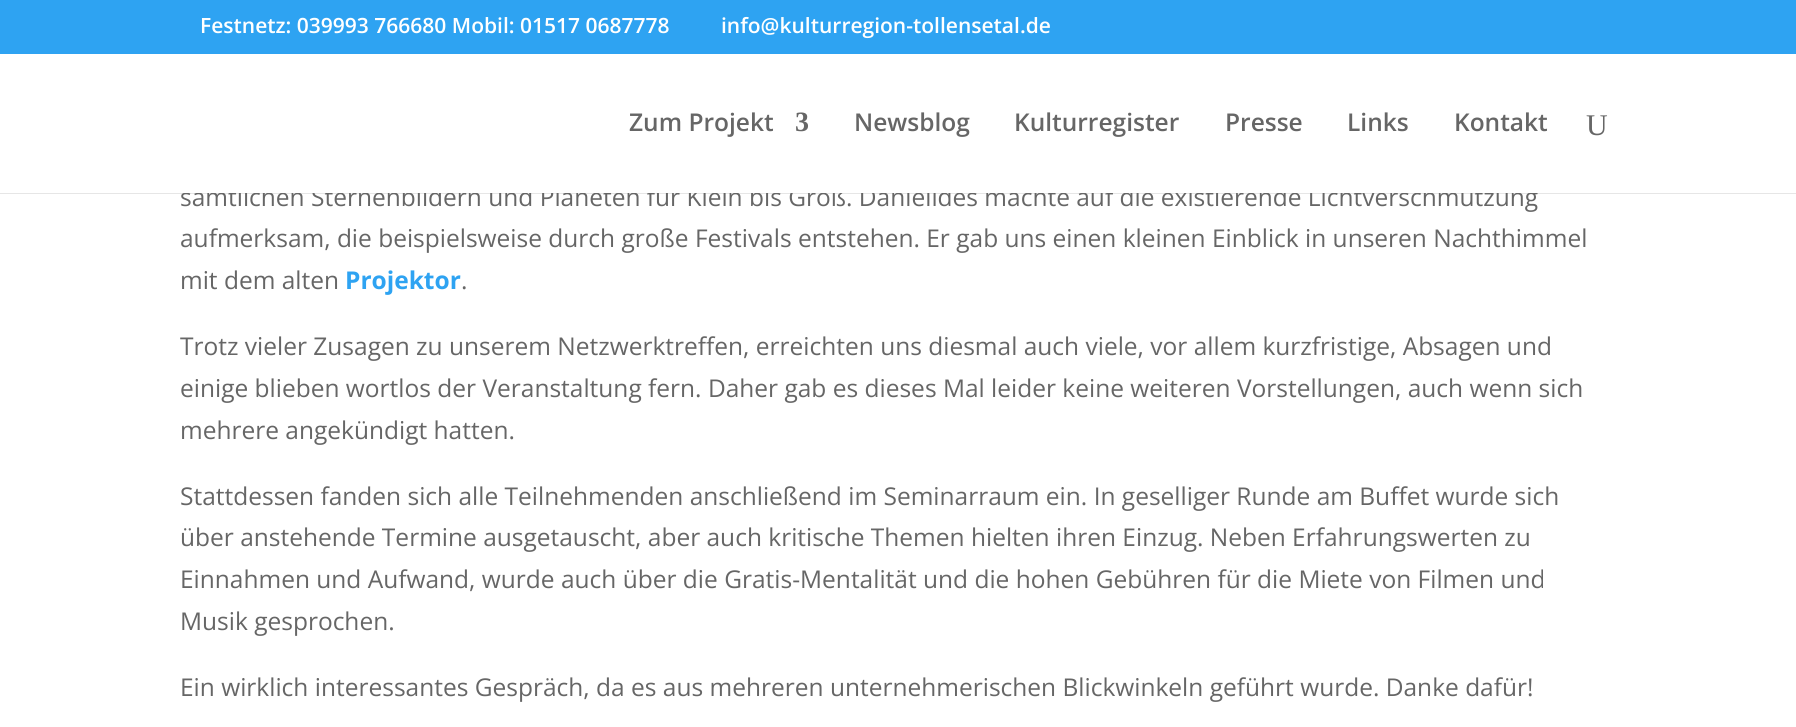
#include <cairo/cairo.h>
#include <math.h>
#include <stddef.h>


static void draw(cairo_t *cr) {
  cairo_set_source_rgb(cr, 1, 1, 1);
  cairo_paint(cr);
  cairo_set_source_rgb(cr, 46 / 255.0, 163 / 255.0, 242 / 255.0);
  cairo_rectangle(cr, 0, 0, 1796, 54);
  cairo_fill(cr);
  cairo_set_source_rgba(cr, 0, 0, 0, 0.1);
  cairo_rectangle(cr, 0, 193, 1796, 1);
  cairo_fill(cr);
  cairo_select_font_face(cr, "Open Sans SemiBold", CAIRO_FONT_SLANT_NORMAL, CAIRO_FONT_WEIGHT_NORMAL);
  cairo_set_font_size(cr, 21);
  cairo_set_source_rgb(cr, 1, 1, 1);
  cairo_move_to(cr, 200, 33);
  cairo_show_text(cr, "Festnetz: 039993 766680 Mobil: 01517 0687778");
  cairo_move_to(cr, 721, 33);
  cairo_show_text(cr, "info@kulturregion-tollensetal.de");
  cairo_set_font_size(cr, 24.5);
  cairo_set_source_rgb(cr, 102 / 255.0, 102 / 255.0, 102 / 255.0);
  cairo_move_to(cr, 629, 131);
  cairo_show_text(cr, "Zum Projekt");
  cairo_select_font_face(cr, "Liberation Serif", CAIRO_FONT_SLANT_NORMAL, CAIRO_FONT_WEIGHT_BOLD);
  cairo_set_font_size(cr, 28);
  cairo_move_to(cr, 795, 131);
  cairo_show_text(cr, "3");
  cairo_select_font_face(cr, "Open Sans SemiBold", CAIRO_FONT_SLANT_NORMAL, CAIRO_FONT_WEIGHT_NORMAL);
  cairo_set_font_size(cr, 24.5);
  cairo_move_to(cr, 854, 131);
  cairo_show_text(cr, "Newsblog");
  cairo_move_to(cr, 1014, 131);
  cairo_show_text(cr, "Kulturregister");
  cairo_move_to(cr, 1225, 131);
  cairo_show_text(cr, "Presse");
  cairo_move_to(cr, 1347, 131);
  cairo_show_text(cr, "Links");
  cairo_move_to(cr, 1454, 131);
  cairo_show_text(cr, "Kontakt");
  cairo_select_font_face(cr, "Liberation Serif", CAIRO_FONT_SLANT_NORMAL, CAIRO_FONT_WEIGHT_NORMAL);
  cairo_set_font_size(cr, 30);
  cairo_move_to(cr, 1586, 135);
  cairo_show_text(cr, "U");
  cairo_select_font_face(cr, "Open Sans", CAIRO_FONT_SLANT_NORMAL, CAIRO_FONT_WEIGHT_NORMAL);
  cairo_set_font_size(cr, 24.5);
  cairo_move_to(cr, 180, 206);
  cairo_show_text(cr, "sämtlichen Sternenbildern und Planeten für Klein bis Groß. Danielides machte auf die existierende Lichtverschmutzung");
  cairo_set_source_rgb(cr, 1, 1, 1);
  cairo_rectangle(cr, 183, 187, 1355, 6);
  cairo_fill(cr);
  cairo_set_source_rgb(cr, 102 / 255.0, 102 / 255.0, 102 / 255.0);
  cairo_move_to(cr, 180, 247);
  cairo_show_text(cr, "aufmerksam, die beispielsweise durch große Festivals entstehen. Er gab uns einen kleinen Einblick in unseren Nachthimmel");
  cairo_move_to(cr, 180, 289);
  cairo_show_text(cr, "mit dem alten");
  cairo_select_font_face(cr, "Open Sans", CAIRO_FONT_SLANT_NORMAL, CAIRO_FONT_WEIGHT_BOLD);
  cairo_set_source_rgb(cr, 46 / 255.0, 163 / 255.0, 242 / 255.0);
  cairo_move_to(cr, 345, 289);
  cairo_show_text(cr, "Projektor");
  cairo_select_font_face(cr, "Open Sans", CAIRO_FONT_SLANT_NORMAL, CAIRO_FONT_WEIGHT_NORMAL);
  cairo_set_source_rgb(cr, 102 / 255.0, 102 / 255.0, 102 / 255.0);
  cairo_move_to(cr, 461, 289);
  cairo_show_text(cr, ".");
  cairo_move_to(cr, 180, 355);
  cairo_show_text(cr, "Trotz vieler Zusagen zu unserem Netzwerktreffen, erreichten uns diesmal auch viele, vor allem kurzfristige, Absagen und");
  cairo_move_to(cr, 180, 397);
  cairo_show_text(cr, "einige blieben wortlos der Veranstaltung fern. Daher gab es dieses Mal leider keine weiteren Vorstellungen, auch wenn sich");
  cairo_move_to(cr, 180, 439);
  cairo_show_text(cr, "mehrere angekündigt hatten.");
  cairo_move_to(cr, 180, 505);
  cairo_show_text(cr, "Stattdessen fanden sich alle Teilnehmenden anschließend im Seminarraum ein. In geselliger Runde am Buffet wurde sich");
  cairo_move_to(cr, 180, 546);
  cairo_show_text(cr, "über anstehende Termine ausgetauscht, aber auch kritische Themen hielten ihren Einzug. Neben Erfahrungswerten zu");
  cairo_move_to(cr, 180, 588);
  cairo_show_text(cr, "Einnahmen und Aufwand, wurde auch über die Gratis-Mentalität und die hohen Gebühren für die Miete von Filmen und");
  cairo_move_to(cr, 180, 630);
  cairo_show_text(cr, "Musik gesprochen.");
  cairo_move_to(cr, 180, 696);
  cairo_show_text(cr, "Ein wirklich interessantes Gespräch, da es aus mehreren unternehmerischen Blickwinkeln geführt wurde. Danke dafür!");
}

int main(void) {
  cairo_surface_t *surface = cairo_image_surface_create(CAIRO_FORMAT_RGB24, 1796, 727);
  cairo_t *cr = cairo_create(surface);
  cairo_font_options_t *options = cairo_font_options_create();
  cairo_font_options_set_hint_metrics(options, CAIRO_HINT_METRICS_OFF);
  cairo_font_options_set_hint_style(options, CAIRO_HINT_STYLE_NONE);
  cairo_set_font_options(cr, options);
  cairo_set_miter_limit(cr, 4);
  draw(cr);
  cairo_surface_write_to_png(surface, "out.png");
  cairo_font_options_destroy(options);
  cairo_destroy(cr);
  cairo_surface_destroy(surface);
  return 0;
}
